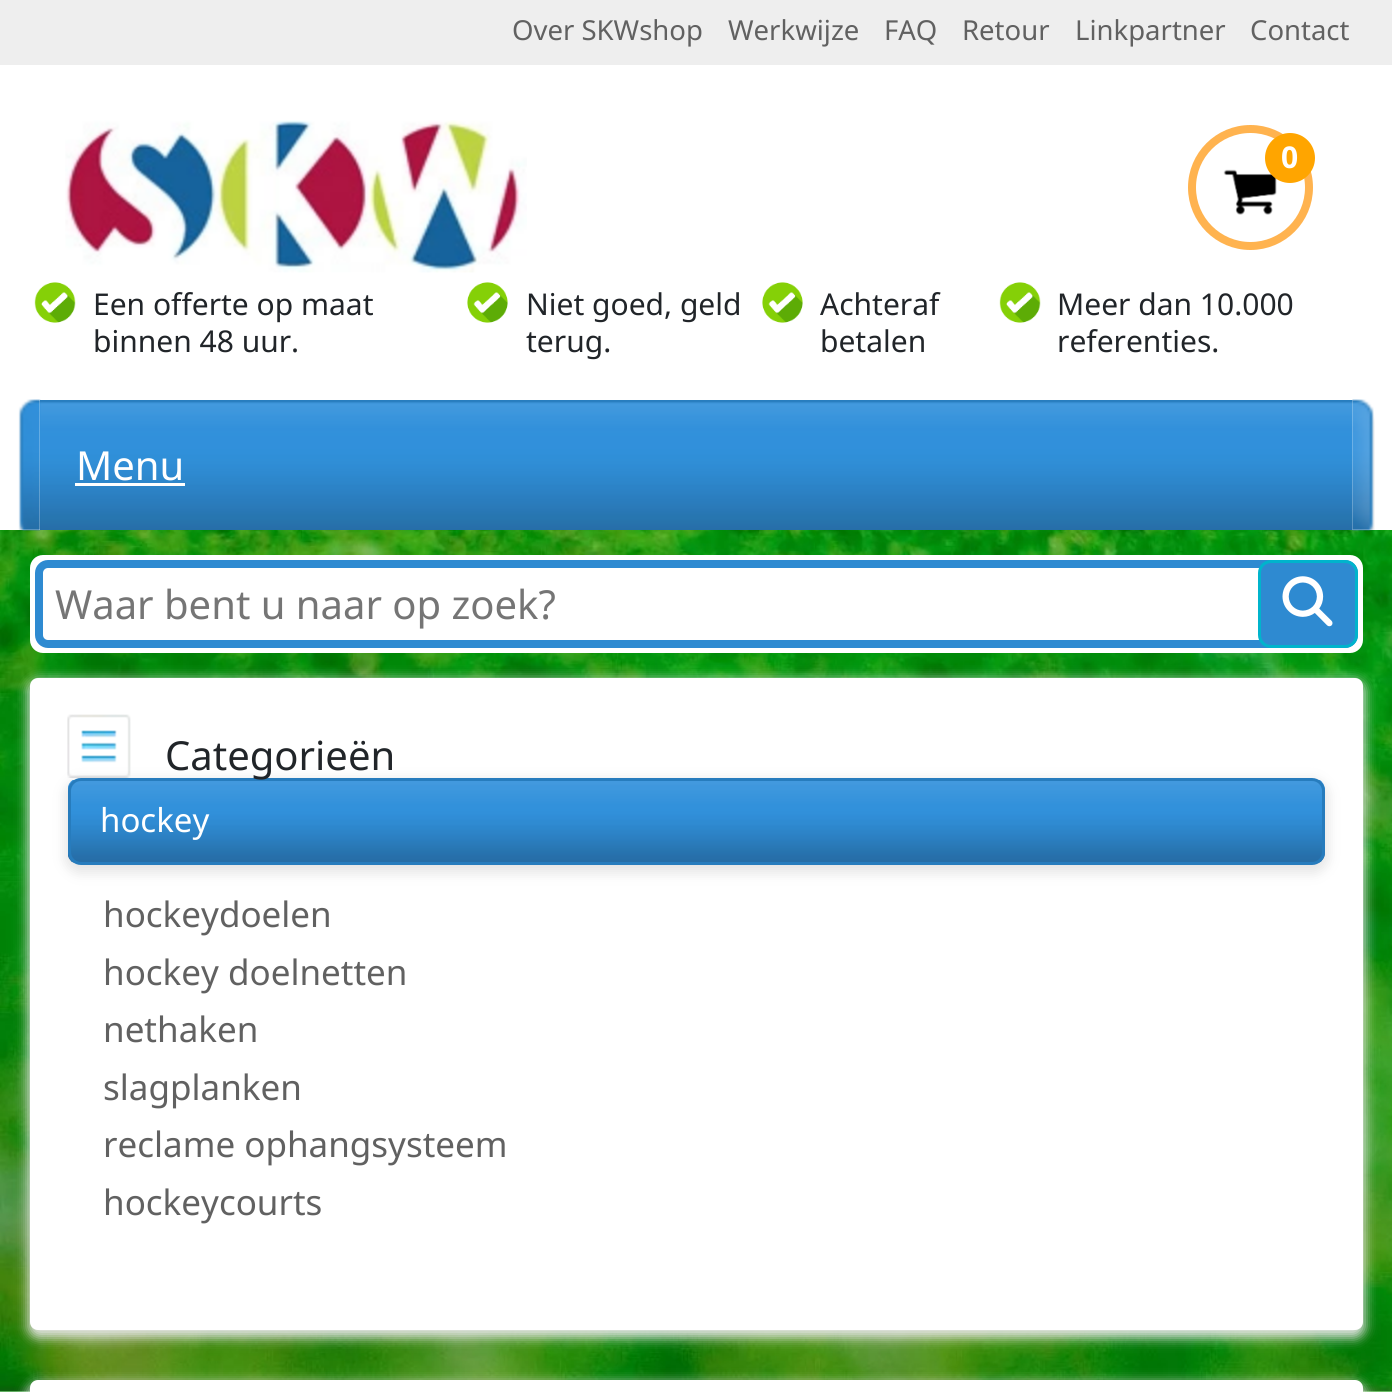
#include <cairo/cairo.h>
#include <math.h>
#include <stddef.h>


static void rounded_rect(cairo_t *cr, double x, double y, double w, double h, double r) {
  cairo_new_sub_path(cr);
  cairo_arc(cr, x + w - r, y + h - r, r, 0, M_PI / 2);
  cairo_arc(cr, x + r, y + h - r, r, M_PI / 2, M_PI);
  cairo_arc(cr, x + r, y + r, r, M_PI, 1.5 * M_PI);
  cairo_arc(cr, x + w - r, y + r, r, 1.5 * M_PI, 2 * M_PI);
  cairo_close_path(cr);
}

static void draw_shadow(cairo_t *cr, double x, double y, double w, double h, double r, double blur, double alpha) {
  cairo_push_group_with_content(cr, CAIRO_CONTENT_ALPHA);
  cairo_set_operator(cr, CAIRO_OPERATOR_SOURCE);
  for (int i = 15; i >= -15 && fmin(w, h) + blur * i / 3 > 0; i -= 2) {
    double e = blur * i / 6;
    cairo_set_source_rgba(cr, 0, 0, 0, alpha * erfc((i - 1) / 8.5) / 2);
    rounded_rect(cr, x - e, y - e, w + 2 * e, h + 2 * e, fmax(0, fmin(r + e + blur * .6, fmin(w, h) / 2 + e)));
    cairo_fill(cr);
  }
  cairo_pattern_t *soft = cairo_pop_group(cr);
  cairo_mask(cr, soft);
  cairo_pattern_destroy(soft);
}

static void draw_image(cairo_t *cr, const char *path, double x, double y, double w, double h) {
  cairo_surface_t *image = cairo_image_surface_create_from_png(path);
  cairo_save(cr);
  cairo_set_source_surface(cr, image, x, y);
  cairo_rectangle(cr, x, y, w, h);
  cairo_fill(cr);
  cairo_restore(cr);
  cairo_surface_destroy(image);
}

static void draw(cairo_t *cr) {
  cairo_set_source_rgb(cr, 1, 1, 1);
  cairo_paint(cr);
  draw_image(cr, "images/1.png", 0, 530, 1392, 862);
  cairo_set_source_rgb(cr, 238 / 255.0, 238 / 255.0, 238 / 255.0);
  cairo_rectangle(cr, 0, 0, 1392, 65);
  cairo_fill(cr);
  draw_image(cr, "images/2.png", 65, 120, 462, 153);
  cairo_arc(cr, 1250.5, 187.5, 58.5, 0, 2 * M_PI);
  cairo_set_source_rgb(cr, 1, 179 / 255.0, 79 / 255.0);
  cairo_set_line_width(cr, 8);
  cairo_stroke(cr);
  draw_image(cr, "images/3.png", 1223, 169, 54, 46);
  cairo_set_source_rgb(cr, 1, 165 / 255.0, 0);
  cairo_arc(cr, 1290, 158, 25, 0, 2 * M_PI);
  cairo_fill(cr);
  draw_image(cr, "images/4.png", 34, 282, 42, 41);
  draw_image(cr, "images/5.png", 467, 282, 41, 41);
  draw_image(cr, "images/6.png", 762, 282, 41, 41);
  draw_image(cr, "images/7.png", 999, 282, 42, 41);
  draw_image(cr, "images/9.png", 40, 400, 1313, 130);
  draw_image(cr, "images/8.png", 18, 399, 23, 132);
  cairo_set_source_rgb(cr, 1, 1, 1);
  cairo_rectangle(cr, 75, 483, 110, 3);
  cairo_fill(cr);
  draw_image(cr, "images/10.png", 1352, 399, 23, 132);
  rounded_rect(cr, 30, 555, 1333, 98, 13);
  cairo_fill(cr);
  rounded_rect(cr, 39, 564, 1315, 80, 9);
  cairo_set_source_rgb(cr, 46 / 255.0, 138 / 255.0, 209 / 255.0);
  cairo_stroke(cr);
  rounded_rect(cr, 1259.5, 561.5, 97, 85, 11.5);
  cairo_fill_preserve(cr);
  cairo_set_source_rgb(cr, 0, 180 / 255.0, 204 / 255.0);
  cairo_set_line_width(cr, 3);
  cairo_stroke(cr);
  draw_image(cr, "images/11.png", 1282, 576, 51, 51);
  cairo_set_source_rgb(cr, 229 / 255.0, 229 / 255.0, 229 / 255.0);
  draw_shadow(cr, 28, 680, 1337, 658, 10, 6, 1);
  cairo_set_source_rgb(cr, 1, 1, 1);
  rounded_rect(cr, 30, 678, 1333, 652, 8);
  cairo_fill(cr);
  cairo_set_source_rgb(cr, 229 / 255.0, 229 / 255.0, 229 / 255.0);
  draw_shadow(cr, 65, 780, 1263, 93, 15, 6, 1);
  draw_image(cr, "images/12.png", 67, 714, 64, 64);
  draw_image(cr, "images/13.png", 68, 780, 1257, 83);
  rounded_rect(cr, 69.5, 779.5, 1254, 84, 11.5);
  cairo_set_source_rgb(cr, 39 / 255.0, 124 / 255.0, 189 / 255.0);
  cairo_stroke(cr);
  cairo_set_source_rgb(cr, 229 / 255.0, 229 / 255.0, 229 / 255.0);
  draw_shadow(cr, 28, 1383, 1337, 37, 10, 6, 1);
  cairo_set_source_rgb(cr, 1, 1, 1);
  rounded_rect(cr, 30, 1380, 1333, 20, 8);
  cairo_fill(cr);
  cairo_select_font_face(cr, "Noto Sans", CAIRO_FONT_SLANT_NORMAL, CAIRO_FONT_WEIGHT_NORMAL);
  cairo_set_font_size(cr, 27.5);
  cairo_set_source_rgb(cr, 97 / 255.0, 97 / 255.0, 97 / 255.0);
  cairo_move_to(cr, 512, 40);
  cairo_show_text(cr, "Over SKWshop");
  cairo_move_to(cr, 728, 40);
  cairo_show_text(cr, "Werkwijze");
  cairo_move_to(cr, 884, 40);
  cairo_show_text(cr, "FAQ");
  cairo_move_to(cr, 962, 40);
  cairo_show_text(cr, "Retour");
  cairo_move_to(cr, 1075, 40);
  cairo_show_text(cr, "Linkpartner");
  cairo_move_to(cr, 1250, 40);
  cairo_show_text(cr, "Contact");
  cairo_select_font_face(cr, "Noto Sans", CAIRO_FONT_SLANT_NORMAL, CAIRO_FONT_WEIGHT_BOLD);
  cairo_set_font_size(cr, 30);
  cairo_set_source_rgb(cr, 1, 1, 1);
  cairo_move_to(cr, 1281, 168);
  cairo_show_text(cr, "0");
  cairo_select_font_face(cr, "Noto Sans", CAIRO_FONT_SLANT_NORMAL, CAIRO_FONT_WEIGHT_NORMAL);
  cairo_set_source_rgb(cr, 33 / 255.0, 37 / 255.0, 41 / 255.0);
  cairo_move_to(cr, 93, 315);
  cairo_show_text(cr, "Een offerte op maat");
  cairo_move_to(cr, 93, 352);
  cairo_show_text(cr, "binnen 48 uur.");
  cairo_move_to(cr, 526, 315);
  cairo_show_text(cr, "Niet goed, geld");
  cairo_move_to(cr, 526, 352);
  cairo_show_text(cr, "terug.");
  cairo_move_to(cr, 820, 315);
  cairo_show_text(cr, "Achteraf");
  cairo_move_to(cr, 820, 352);
  cairo_show_text(cr, "betalen");
  cairo_move_to(cr, 1057, 315);
  cairo_show_text(cr, "Meer dan 10.000");
  cairo_move_to(cr, 1057, 352);
  cairo_show_text(cr, "referenties.");
  cairo_set_font_size(cr, 40);
  cairo_set_source_rgb(cr, 1, 1, 1);
  cairo_move_to(cr, 76, 480);
  cairo_show_text(cr, "Menu");
  cairo_set_source_rgb(cr, 117 / 255.0, 117 / 255.0, 117 / 255.0);
  cairo_move_to(cr, 55, 619);
  cairo_show_text(cr, "Waar bent u naar op zoek?");
  cairo_set_source_rgb(cr, 33 / 255.0, 37 / 255.0, 41 / 255.0);
  cairo_move_to(cr, 165, 770);
  cairo_show_text(cr, "Categorieën");
  cairo_set_font_size(cr, 33);
  cairo_set_source_rgb(cr, 1, 1, 1);
  cairo_move_to(cr, 100, 832);
  cairo_show_text(cr, "hockey");
  cairo_set_font_size(cr, 35);
  cairo_set_source_rgb(cr, 97 / 255.0, 97 / 255.0, 97 / 255.0);
  cairo_move_to(cr, 103, 927);
  cairo_show_text(cr, "hockeydoelen");
  cairo_move_to(cr, 103, 985);
  cairo_show_text(cr, "hockey doelnetten");
  cairo_move_to(cr, 103, 1042);
  cairo_show_text(cr, "nethaken");
  cairo_move_to(cr, 103, 1100);
  cairo_show_text(cr, "slagplanken");
  cairo_move_to(cr, 103, 1157);
  cairo_show_text(cr, "reclame ophangsysteem");
  cairo_move_to(cr, 103, 1215);
  cairo_show_text(cr, "hockeycourts");
}

int main(void) {
  cairo_surface_t *surface = cairo_image_surface_create(CAIRO_FORMAT_RGB24, 1392, 1392);
  cairo_t *cr = cairo_create(surface);
  cairo_font_options_t *options = cairo_font_options_create();
  cairo_font_options_set_hint_metrics(options, CAIRO_HINT_METRICS_OFF);
  cairo_font_options_set_hint_style(options, CAIRO_HINT_STYLE_NONE);
  cairo_set_font_options(cr, options);
  cairo_set_miter_limit(cr, 4);
  draw(cr);
  cairo_surface_write_to_png(surface, "out.png");
  cairo_font_options_destroy(options);
  cairo_destroy(cr);
  cairo_surface_destroy(surface);
  return 0;
}
